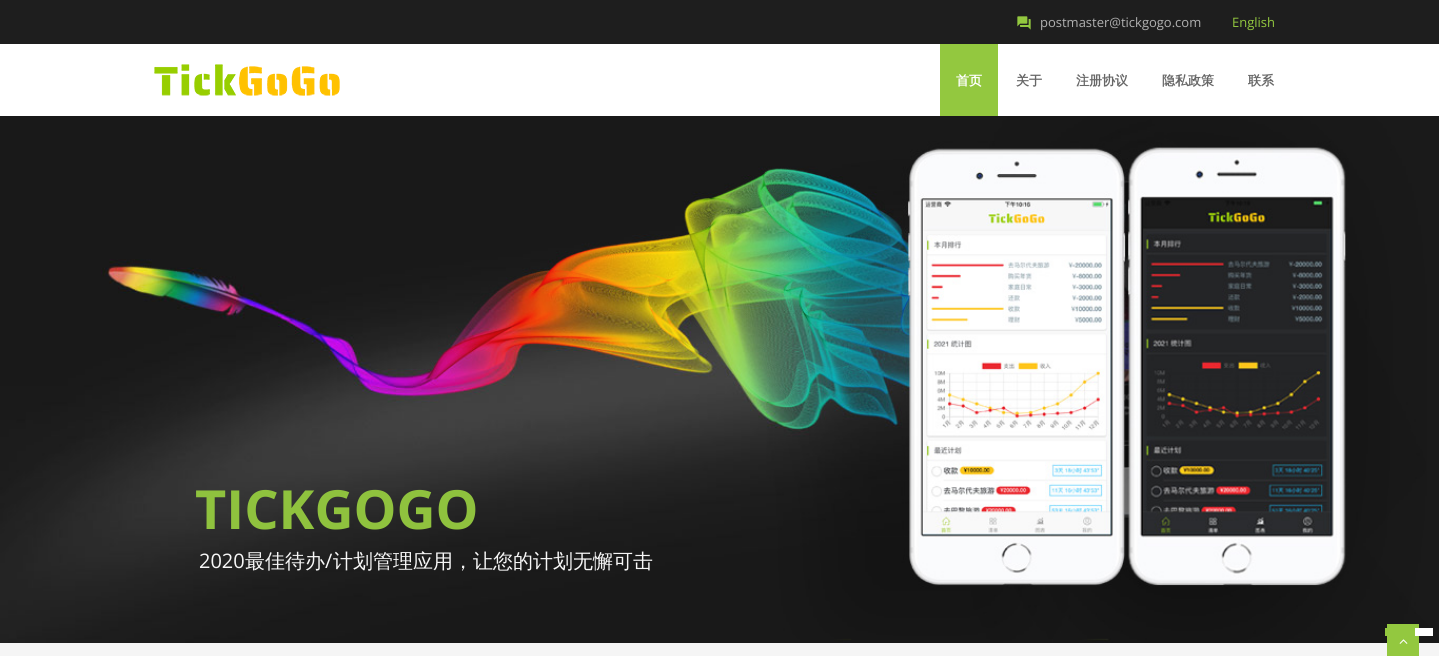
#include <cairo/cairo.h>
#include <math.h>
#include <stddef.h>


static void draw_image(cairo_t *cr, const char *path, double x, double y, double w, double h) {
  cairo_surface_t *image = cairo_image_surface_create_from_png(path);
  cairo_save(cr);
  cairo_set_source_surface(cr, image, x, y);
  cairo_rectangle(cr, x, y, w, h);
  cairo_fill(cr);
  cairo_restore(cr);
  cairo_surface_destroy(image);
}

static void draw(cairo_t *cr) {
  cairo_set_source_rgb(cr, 245 / 255.0, 245 / 255.0, 245 / 255.0);
  cairo_paint(cr);
  cairo_set_source_rgb(cr, 30 / 255.0, 30 / 255.0, 30 / 255.0);
  cairo_rectangle(cr, 0, 0, 1439, 44);
  cairo_fill(cr);
  draw_image(cr, "images/1.png", 1017, 16, 14, 14);
  cairo_set_source_rgb(cr, 1, 1, 1);
  cairo_rectangle(cr, 0, 44, 1439, 72);
  cairo_fill(cr);
  draw_image(cr, "images/2.png", 154, 64, 186, 32);
  cairo_set_source_rgb(cr, 147 / 255.0, 200 / 255.0, 63 / 255.0);
  cairo_rectangle(cr, 940, 44, 58, 72);
  cairo_fill(cr);
  draw_image(cr, "images/3.png", 0, 116, 1439, 527);
  cairo_rectangle(cr, 1385, 628, 2, 8);
  cairo_fill(cr);
  cairo_rectangle(cr, 1387, 624, 32, 32);
  cairo_fill(cr);
  cairo_set_source_rgb(cr, 1, 1, 1);
  cairo_rectangle(cr, 1415, 628, 18, 8);
  cairo_fill(cr);
  draw_image(cr, "images/4.png", 1399, 639, 9, 5);
  cairo_select_font_face(cr, "Open Sans", CAIRO_FONT_SLANT_NORMAL, CAIRO_FONT_WEIGHT_NORMAL);
  cairo_set_font_size(cr, 13);
  cairo_set_source_rgb(cr, 176 / 255.0, 176 / 255.0, 176 / 255.0);
  cairo_move_to(cr, 1040, 27);
  cairo_show_text(cr, "postmaster@tickgogo.com");
  cairo_set_source_rgb(cr, 147 / 255.0, 200 / 255.0, 63 / 255.0);
  cairo_move_to(cr, 1232, 27);
  cairo_show_text(cr, "English");
  cairo_select_font_face(cr, "WenQuanYi Zen Hei", CAIRO_FONT_SLANT_NORMAL, CAIRO_FONT_WEIGHT_BOLD);
  cairo_set_source_rgb(cr, 1, 1, 1);
  cairo_move_to(cr, 956, 85);
  cairo_show_text(cr, "首页");
  cairo_set_source_rgb(cr, 103 / 255.0, 103 / 255.0, 103 / 255.0);
  cairo_move_to(cr, 1016, 85);
  cairo_show_text(cr, "关于");
  cairo_move_to(cr, 1076, 85);
  cairo_show_text(cr, "注册协议");
  cairo_move_to(cr, 1162, 85);
  cairo_show_text(cr, "隐私政策");
  cairo_move_to(cr, 1248, 85);
  cairo_show_text(cr, "联系");
  cairo_select_font_face(cr, "Open Sans", CAIRO_FONT_SLANT_NORMAL, CAIRO_FONT_WEIGHT_BOLD);
  cairo_set_font_size(cr, 54);
  cairo_set_source_rgb(cr, 143 / 255.0, 194 / 255.0, 62 / 255.0);
  cairo_move_to(cr, 195, 529);
  cairo_show_text(cr, "TICKGOGO");
  cairo_select_font_face(cr, "Open Sans", CAIRO_FONT_SLANT_NORMAL, CAIRO_FONT_WEIGHT_NORMAL);
  cairo_set_font_size(cr, 20);
  cairo_set_source_rgb(cr, 247 / 255.0, 247 / 255.0, 247 / 255.0);
  cairo_move_to(cr, 199, 568);
  cairo_show_text(cr, "2020");
  cairo_select_font_face(cr, "WenQuanYi Zen Hei Medium", CAIRO_FONT_SLANT_NORMAL, CAIRO_FONT_WEIGHT_NORMAL);
  cairo_move_to(cr, 245, 568);
  cairo_show_text(cr, "最佳待办");
  cairo_select_font_face(cr, "Open Sans", CAIRO_FONT_SLANT_NORMAL, CAIRO_FONT_WEIGHT_NORMAL);
  cairo_move_to(cr, 325, 568);
  cairo_show_text(cr, "/");
  cairo_select_font_face(cr, "WenQuanYi Zen Hei Medium", CAIRO_FONT_SLANT_NORMAL, CAIRO_FONT_WEIGHT_NORMAL);
  cairo_move_to(cr, 333, 568);
  cairo_show_text(cr, "计划管理应用，让您的计划无懈可击");
}

int main(void) {
  cairo_surface_t *surface = cairo_image_surface_create(CAIRO_FORMAT_RGB24, 1439, 656);
  cairo_t *cr = cairo_create(surface);
  cairo_font_options_t *options = cairo_font_options_create();
  cairo_font_options_set_hint_metrics(options, CAIRO_HINT_METRICS_OFF);
  cairo_font_options_set_hint_style(options, CAIRO_HINT_STYLE_NONE);
  cairo_set_font_options(cr, options);
  cairo_set_miter_limit(cr, 4);
  draw(cr);
  cairo_surface_write_to_png(surface, "out.png");
  cairo_font_options_destroy(options);
  cairo_destroy(cr);
  cairo_surface_destroy(surface);
  return 0;
}
